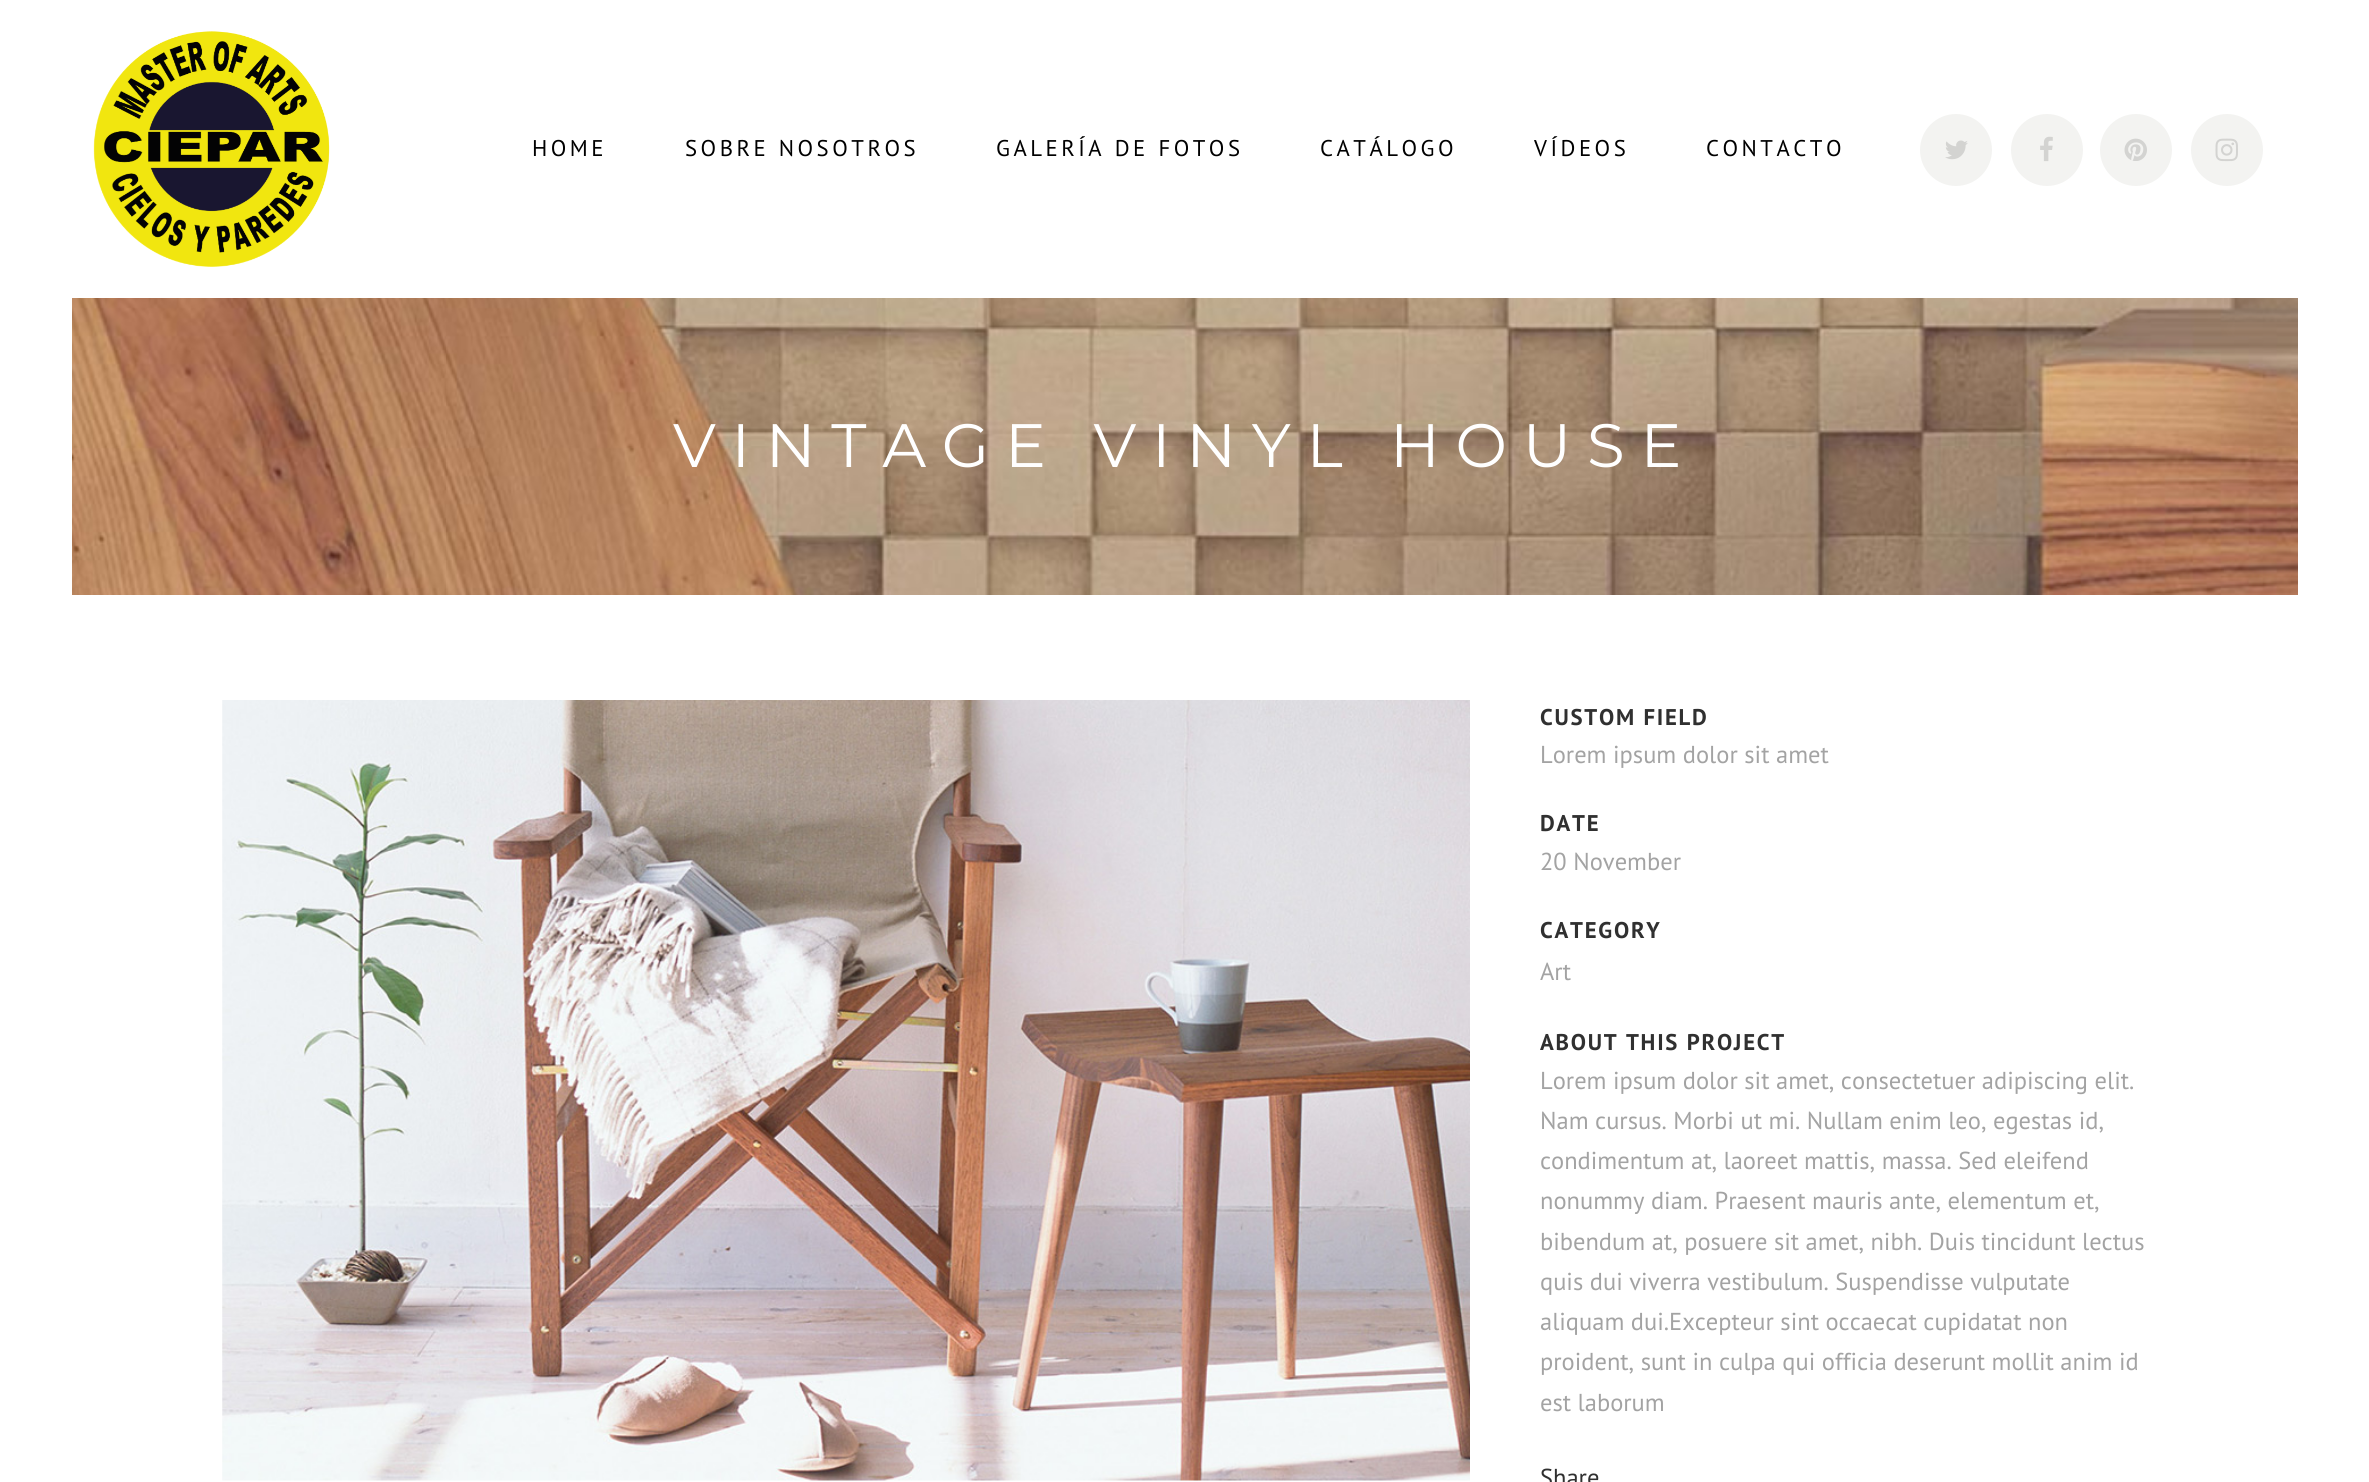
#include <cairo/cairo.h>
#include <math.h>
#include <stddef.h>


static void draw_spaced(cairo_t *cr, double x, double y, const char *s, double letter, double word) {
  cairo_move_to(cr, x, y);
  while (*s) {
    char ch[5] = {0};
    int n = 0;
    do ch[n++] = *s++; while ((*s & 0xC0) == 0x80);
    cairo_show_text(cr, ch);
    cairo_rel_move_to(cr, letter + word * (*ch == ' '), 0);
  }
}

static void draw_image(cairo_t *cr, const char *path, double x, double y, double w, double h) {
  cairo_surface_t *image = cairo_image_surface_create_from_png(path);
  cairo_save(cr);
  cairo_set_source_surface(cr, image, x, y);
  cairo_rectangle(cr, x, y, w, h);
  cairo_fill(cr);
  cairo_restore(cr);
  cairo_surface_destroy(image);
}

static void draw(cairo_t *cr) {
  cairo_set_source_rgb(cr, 1, 1, 1);
  cairo_paint(cr);
  draw_image(cr, "images/1.png", 93, 31, 237, 236);
  cairo_set_source_rgb(cr, 243 / 255.0, 243 / 255.0, 241 / 255.0);
  cairo_arc(cr, 1956, 150, 36, 0, 2 * M_PI);
  cairo_fill(cr);
  draw_image(cr, "images/2.png", 1945, 140, 23, 20);
  cairo_arc(cr, 2047, 150, 36, 0, 2 * M_PI);
  cairo_fill(cr);
  draw_image(cr, "images/3.png", 2040, 136, 13, 26);
  cairo_arc(cr, 2136, 150, 36, 0, 2 * M_PI);
  cairo_fill(cr);
  draw_image(cr, "images/4.png", 2124, 138, 23, 23);
  cairo_arc(cr, 2227, 150, 36, 0, 2 * M_PI);
  cairo_fill(cr);
  draw_image(cr, "images/5.png", 2215, 138, 23, 24);
  draw_image(cr, "images/6.png", 72, 298, 2226, 297);
  draw_image(cr, "images/7.png", 222, 700, 1248, 781);
  cairo_select_font_face(cr, "PT Sans", CAIRO_FONT_SLANT_NORMAL, CAIRO_FONT_WEIGHT_NORMAL);
  cairo_set_font_size(cr, 22.75);
  cairo_set_source_rgb(cr, 0, 0, 0);
  draw_spaced(cr, 532, 156, "HOME", 3.5, 0);
  draw_spaced(cr, 685, 156, "SOBRE NOSOTROS", 3.5, 0);
  draw_spaced(cr, 996, 156, "GALERÍA DE FOTOS", 3.5, 0);
  draw_spaced(cr, 1320, 156, "CATÁLOGO", 3.5, 0);
  draw_spaced(cr, 1534, 156, "VÍDEOS", 3.5, 0);
  draw_spaced(cr, 1706, 156, "CONTACTO", 3.5, 0);
  cairo_select_font_face(cr, "Montserrat", CAIRO_FONT_SLANT_NORMAL, CAIRO_FONT_WEIGHT_NORMAL);
  cairo_set_font_size(cr, 61.25);
  cairo_set_source_rgb(cr, 1, 1, 1);
  draw_spaced(cr, 673, 467, "VINTAGE VINYL HOUSE", 15.75, 0);
  cairo_select_font_face(cr, "PT Sans", CAIRO_FONT_SLANT_NORMAL, CAIRO_FONT_WEIGHT_BOLD);
  cairo_set_font_size(cr, 22.75);
  cairo_set_source_rgb(cr, 48 / 255.0, 48 / 255.0, 48 / 255.0);
  draw_spaced(cr, 1540, 725, "CUSTOM FIELD", 1.75, 0);
  cairo_select_font_face(cr, "PT Sans", CAIRO_FONT_SLANT_NORMAL, CAIRO_FONT_WEIGHT_NORMAL);
  cairo_set_font_size(cr, 24.5);
  cairo_set_source_rgb(cr, 163 / 255.0, 163 / 255.0, 163 / 255.0);
  cairo_move_to(cr, 1540, 763);
  cairo_show_text(cr, "Lorem ipsum dolor sit amet");
  cairo_select_font_face(cr, "PT Sans", CAIRO_FONT_SLANT_NORMAL, CAIRO_FONT_WEIGHT_BOLD);
  cairo_set_font_size(cr, 22.75);
  cairo_set_source_rgb(cr, 48 / 255.0, 48 / 255.0, 48 / 255.0);
  draw_spaced(cr, 1540, 831, "DATE", 1.75, 0);
  cairo_select_font_face(cr, "PT Sans", CAIRO_FONT_SLANT_NORMAL, CAIRO_FONT_WEIGHT_NORMAL);
  cairo_set_font_size(cr, 24.5);
  cairo_set_source_rgb(cr, 163 / 255.0, 163 / 255.0, 163 / 255.0);
  cairo_move_to(cr, 1540, 870);
  cairo_show_text(cr, "20 November");
  cairo_select_font_face(cr, "PT Sans", CAIRO_FONT_SLANT_NORMAL, CAIRO_FONT_WEIGHT_BOLD);
  cairo_set_font_size(cr, 22.75);
  cairo_set_source_rgb(cr, 48 / 255.0, 48 / 255.0, 48 / 255.0);
  draw_spaced(cr, 1540, 938, "CATEGORY", 1.75, 0);
  cairo_select_font_face(cr, "PT Sans", CAIRO_FONT_SLANT_NORMAL, CAIRO_FONT_WEIGHT_NORMAL);
  cairo_set_font_size(cr, 24.5);
  cairo_set_source_rgb(cr, 163 / 255.0, 163 / 255.0, 163 / 255.0);
  cairo_move_to(cr, 1540, 980);
  cairo_show_text(cr, "Art");
  cairo_select_font_face(cr, "PT Sans", CAIRO_FONT_SLANT_NORMAL, CAIRO_FONT_WEIGHT_BOLD);
  cairo_set_font_size(cr, 22.75);
  cairo_set_source_rgb(cr, 48 / 255.0, 48 / 255.0, 48 / 255.0);
  draw_spaced(cr, 1540, 1050, "ABOUT THIS PROJECT", 1.75, 0);
  cairo_select_font_face(cr, "PT Sans", CAIRO_FONT_SLANT_NORMAL, CAIRO_FONT_WEIGHT_NORMAL);
  cairo_set_font_size(cr, 24.5);
  cairo_set_source_rgb(cr, 163 / 255.0, 163 / 255.0, 163 / 255.0);
  cairo_move_to(cr, 1540, 1089);
  cairo_show_text(cr, "Lorem ipsum dolor sit amet, consectetuer adipiscing elit.");
  cairo_move_to(cr, 1540, 1129);
  cairo_show_text(cr, "Nam cursus. Morbi ut mi. Nullam enim leo, egestas id,");
  cairo_move_to(cr, 1540, 1169);
  cairo_show_text(cr, "condimentum at, laoreet mattis, massa. Sed eleifend");
  cairo_move_to(cr, 1540, 1209);
  cairo_show_text(cr, "nonummy diam. Praesent mauris ante, elementum et,");
  cairo_move_to(cr, 1540, 1250);
  cairo_show_text(cr, "bibendum at, posuere sit amet, nibh. Duis tincidunt lectus");
  cairo_move_to(cr, 1540, 1290);
  cairo_show_text(cr, "quis dui viverra vestibulum. Suspendisse vulputate");
  cairo_move_to(cr, 1540, 1330);
  cairo_show_text(cr, "aliquam dui.Excepteur sint occaecat cupidatat non");
  cairo_move_to(cr, 1540, 1370);
  cairo_show_text(cr, "proident, sunt in culpa qui officia deserunt mollit anim id");
  cairo_move_to(cr, 1540, 1411);
  cairo_show_text(cr, "est laborum");
  cairo_set_source_rgb(cr, 48 / 255.0, 48 / 255.0, 48 / 255.0);
  cairo_move_to(cr, 1540, 1486);
  cairo_show_text(cr, "Share");
}

int main(void) {
  cairo_surface_t *surface = cairo_image_surface_create(CAIRO_FORMAT_RGB24, 2369, 1482);
  cairo_t *cr = cairo_create(surface);
  cairo_font_options_t *options = cairo_font_options_create();
  cairo_font_options_set_hint_metrics(options, CAIRO_HINT_METRICS_OFF);
  cairo_font_options_set_hint_style(options, CAIRO_HINT_STYLE_NONE);
  cairo_set_font_options(cr, options);
  cairo_set_miter_limit(cr, 4);
  draw(cr);
  cairo_surface_write_to_png(surface, "out.png");
  cairo_font_options_destroy(options);
  cairo_destroy(cr);
  cairo_surface_destroy(surface);
  return 0;
}
